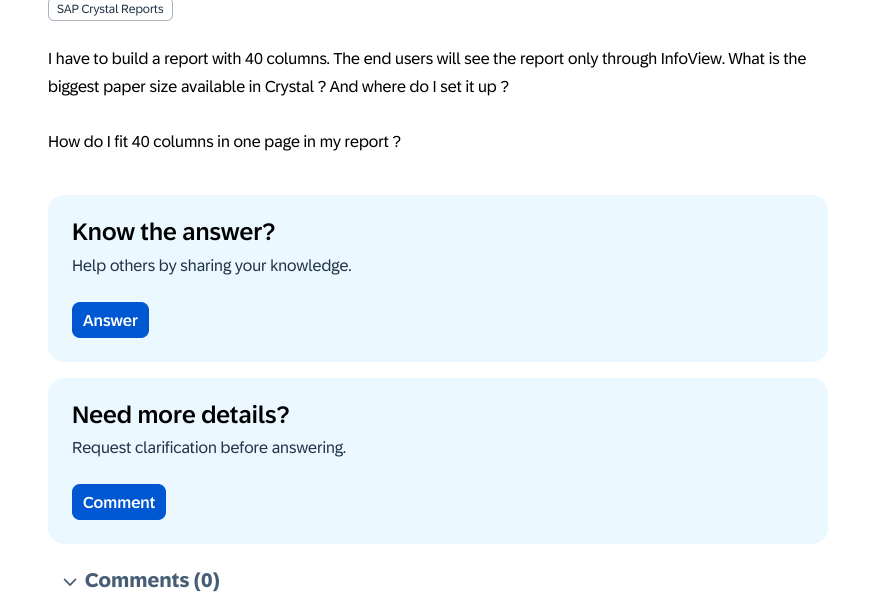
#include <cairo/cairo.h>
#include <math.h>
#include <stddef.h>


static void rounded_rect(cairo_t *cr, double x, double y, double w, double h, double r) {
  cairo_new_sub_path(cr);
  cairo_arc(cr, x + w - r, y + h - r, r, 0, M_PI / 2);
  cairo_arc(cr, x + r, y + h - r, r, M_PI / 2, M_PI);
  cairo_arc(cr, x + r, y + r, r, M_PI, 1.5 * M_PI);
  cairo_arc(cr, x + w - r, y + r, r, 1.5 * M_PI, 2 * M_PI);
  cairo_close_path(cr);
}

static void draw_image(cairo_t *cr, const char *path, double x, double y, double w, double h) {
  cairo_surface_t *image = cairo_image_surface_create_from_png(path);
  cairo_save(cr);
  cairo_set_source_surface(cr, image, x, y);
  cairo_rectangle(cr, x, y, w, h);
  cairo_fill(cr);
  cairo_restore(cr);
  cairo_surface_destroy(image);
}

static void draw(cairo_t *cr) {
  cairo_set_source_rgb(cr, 1, 1, 1);
  cairo_paint(cr);
  rounded_rect(cr, 48.5, -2.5, 124, 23, 5.5);
  cairo_set_source_rgb(cr, 169 / 255.0, 180 / 255.0, 190 / 255.0);
  cairo_set_line_width(cr, 1);
  cairo_stroke(cr);
  cairo_set_source_rgb(cr, 235 / 255.0, 248 / 255.0, 1);
  rounded_rect(cr, 48, 195, 780, 167, 16);
  cairo_fill(cr);
  cairo_set_source_rgb(cr, 0, 87 / 255.0, 210 / 255.0);
  rounded_rect(cr, 72.5, 302.5, 76, 35, 7.5);
  cairo_fill_preserve(cr);
  cairo_stroke(cr);
  cairo_set_source_rgb(cr, 235 / 255.0, 248 / 255.0, 1);
  rounded_rect(cr, 48, 378, 780, 166, 16);
  cairo_fill(cr);
  cairo_set_source_rgb(cr, 0, 87 / 255.0, 210 / 255.0);
  rounded_rect(cr, 72.5, 484.5, 93, 35, 7.5);
  cairo_fill_preserve(cr);
  cairo_stroke(cr);
  draw_image(cr, "images/1.png", 63, 578, 14, 8);
  cairo_select_font_face(cr, "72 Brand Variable", CAIRO_FONT_SLANT_NORMAL, CAIRO_FONT_WEIGHT_NORMAL);
  cairo_set_font_size(cr, 12);
  cairo_set_source_rgb(cr, 34 / 255.0, 53 / 255.0, 72 / 255.0);
  cairo_move_to(cr, 57, 13);
  cairo_show_text(cr, "SAP Crystal Reports");
  cairo_set_font_size(cr, 16);
  cairo_set_source_rgb(cr, 0, 0, 0);
  cairo_move_to(cr, 48, 64);
  cairo_show_text(cr, "I have to build a report with 40 columns. The end users will see the report only through InfoView. What is the");
  cairo_move_to(cr, 48, 92);
  cairo_show_text(cr, "biggest paper size available in Crystal ? And where do I set it up ?");
  cairo_move_to(cr, 48, 147);
  cairo_show_text(cr, "How do I fit 40 columns in one page in my report ?");
  cairo_select_font_face(cr, "72 Brand Variable Medium", CAIRO_FONT_SLANT_NORMAL, CAIRO_FONT_WEIGHT_NORMAL);
  cairo_set_font_size(cr, 24);
  cairo_move_to(cr, 72, 240);
  cairo_show_text(cr, "Know the answer?");
  cairo_select_font_face(cr, "72 Brand Variable", CAIRO_FONT_SLANT_NORMAL, CAIRO_FONT_WEIGHT_NORMAL);
  cairo_set_font_size(cr, 16);
  cairo_set_source_rgb(cr, 34 / 255.0, 53 / 255.0, 72 / 255.0);
  cairo_move_to(cr, 72, 271);
  cairo_show_text(cr, "Help others by sharing your knowledge.");
  cairo_select_font_face(cr, "72 Brand Variable Medium", CAIRO_FONT_SLANT_NORMAL, CAIRO_FONT_WEIGHT_NORMAL);
  cairo_set_source_rgb(cr, 1, 1, 1);
  cairo_move_to(cr, 83, 326);
  cairo_show_text(cr, "Answer");
  cairo_set_font_size(cr, 24);
  cairo_set_source_rgb(cr, 0, 0, 0);
  cairo_move_to(cr, 72, 423);
  cairo_show_text(cr, "Need more details?");
  cairo_select_font_face(cr, "72 Brand Variable", CAIRO_FONT_SLANT_NORMAL, CAIRO_FONT_WEIGHT_NORMAL);
  cairo_set_font_size(cr, 16);
  cairo_set_source_rgb(cr, 34 / 255.0, 53 / 255.0, 72 / 255.0);
  cairo_move_to(cr, 72, 453);
  cairo_show_text(cr, "Request clarification before answering.");
  cairo_select_font_face(cr, "72 Brand Variable Medium", CAIRO_FONT_SLANT_NORMAL, CAIRO_FONT_WEIGHT_NORMAL);
  cairo_set_source_rgb(cr, 1, 1, 1);
  cairo_move_to(cr, 83, 508);
  cairo_show_text(cr, "Comment");
  cairo_select_font_face(cr, "72 Brand Variable", CAIRO_FONT_SLANT_NORMAL, CAIRO_FONT_WEIGHT_BOLD);
  cairo_set_font_size(cr, 20);
  cairo_set_source_rgb(cr, 71 / 255.0, 94 / 255.0, 117 / 255.0);
  cairo_move_to(cr, 85, 587);
  cairo_show_text(cr, "Comments (0)");
}

int main(void) {
  cairo_surface_t *surface = cairo_image_surface_create(CAIRO_FORMAT_RGB24, 876, 602);
  cairo_t *cr = cairo_create(surface);
  cairo_font_options_t *options = cairo_font_options_create();
  cairo_font_options_set_hint_metrics(options, CAIRO_HINT_METRICS_OFF);
  cairo_font_options_set_hint_style(options, CAIRO_HINT_STYLE_NONE);
  cairo_set_font_options(cr, options);
  cairo_set_miter_limit(cr, 4);
  draw(cr);
  cairo_surface_write_to_png(surface, "out.png");
  cairo_font_options_destroy(options);
  cairo_destroy(cr);
  cairo_surface_destroy(surface);
  return 0;
}
